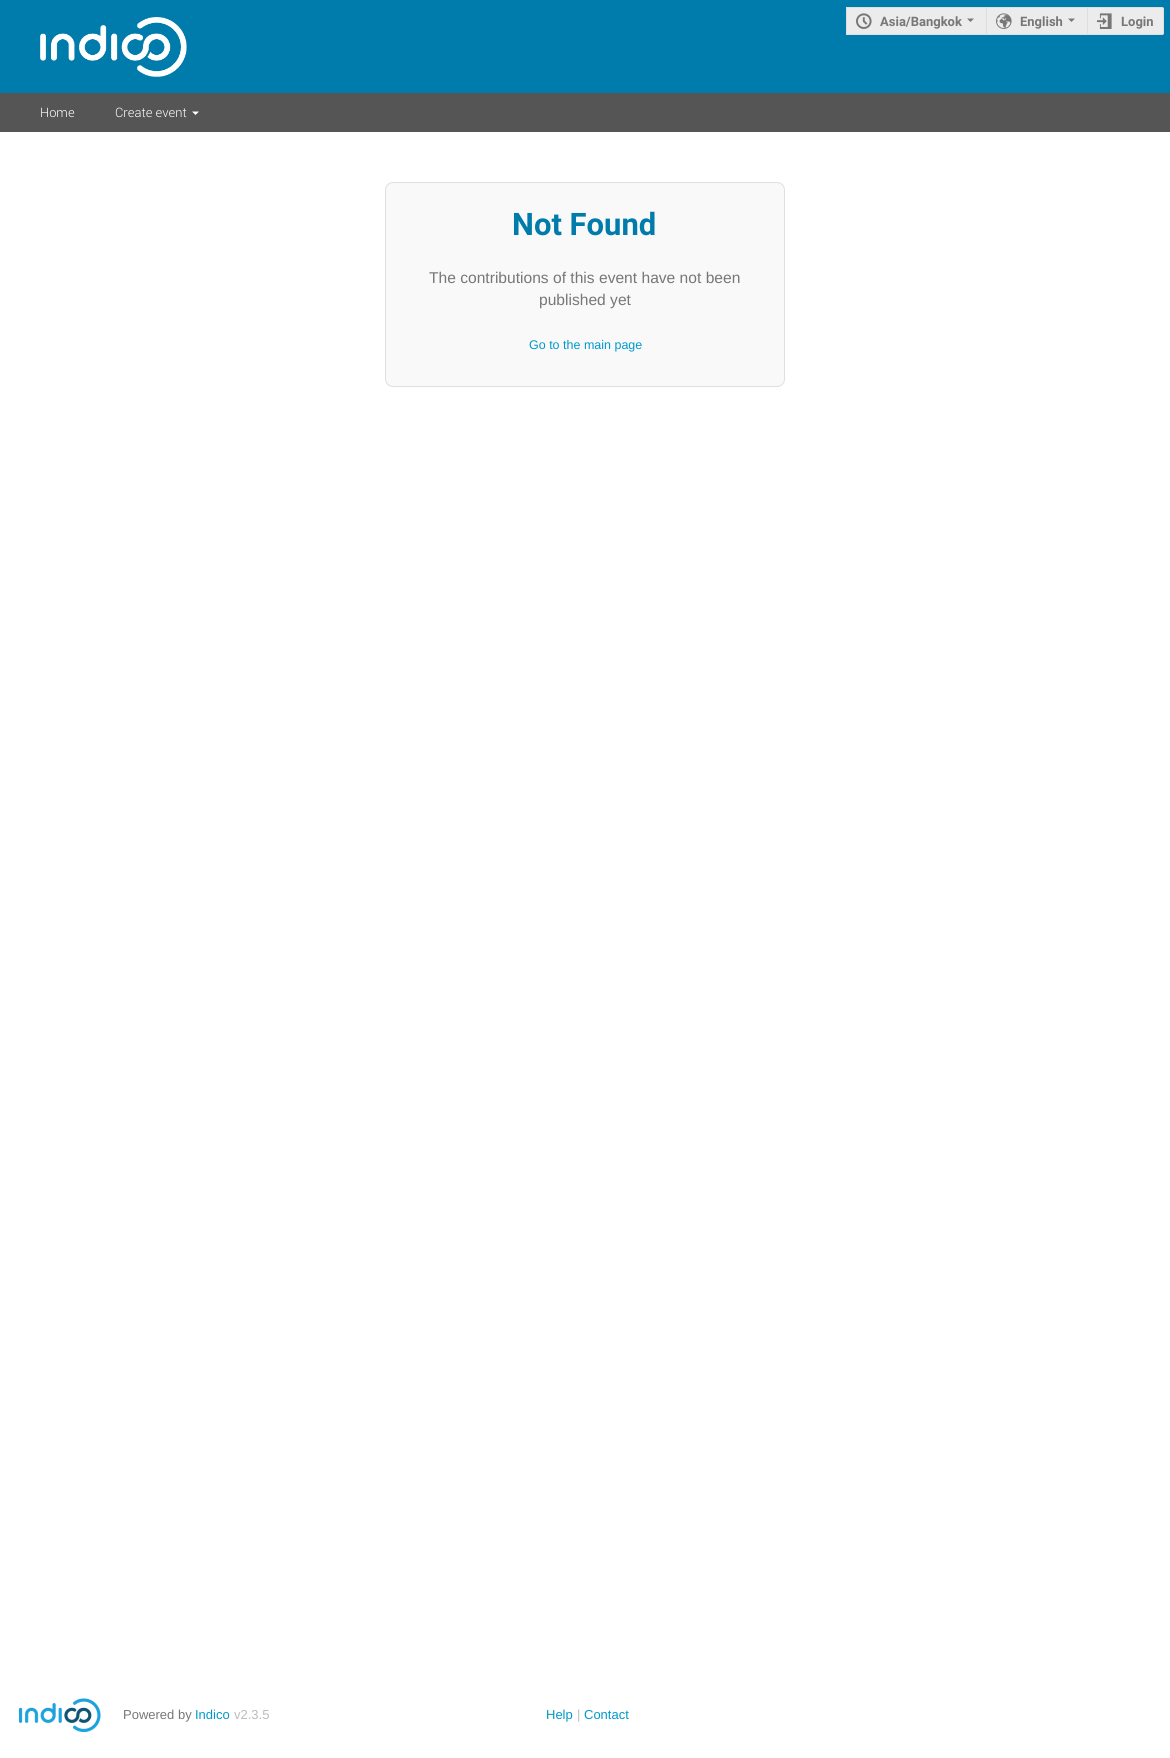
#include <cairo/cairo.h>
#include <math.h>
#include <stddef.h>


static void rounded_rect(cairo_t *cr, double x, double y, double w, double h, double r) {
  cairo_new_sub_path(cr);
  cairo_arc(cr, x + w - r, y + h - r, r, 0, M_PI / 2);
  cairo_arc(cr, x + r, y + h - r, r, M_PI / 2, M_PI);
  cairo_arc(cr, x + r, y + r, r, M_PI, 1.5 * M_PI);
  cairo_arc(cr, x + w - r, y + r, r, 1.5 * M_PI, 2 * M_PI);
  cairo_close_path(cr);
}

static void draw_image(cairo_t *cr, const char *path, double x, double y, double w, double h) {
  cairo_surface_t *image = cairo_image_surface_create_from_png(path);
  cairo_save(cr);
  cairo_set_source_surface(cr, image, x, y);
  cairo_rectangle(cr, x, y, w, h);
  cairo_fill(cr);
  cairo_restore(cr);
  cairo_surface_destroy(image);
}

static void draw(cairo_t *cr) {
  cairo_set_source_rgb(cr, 1, 1, 1);
  cairo_paint(cr);
  cairo_set_source_rgb(cr, 0, 124 / 255.0, 172 / 255.0);
  cairo_rectangle(cr, 0, 0, 1170, 93);
  cairo_fill(cr);
  draw_image(cr, "images/1.png", 40, 17, 147, 60);
  cairo_set_source_rgb(cr, 236 / 255.0, 236 / 255.0, 236 / 255.0);
  cairo_rectangle(cr, 847, 8, 139, 26);
  cairo_fill(cr);
  cairo_set_source_rgb(cr, 223 / 255.0, 223 / 255.0, 223 / 255.0);
  cairo_rectangle(cr, 846, 7, 241, 1);
  cairo_fill(cr);
  cairo_rectangle(cr, 846, 34, 241, 1);
  cairo_fill(cr);
  cairo_rectangle(cr, 846, 7, 1, 28);
  cairo_fill(cr);
  draw_image(cr, "images/2.png", 856, 13, 16, 16);
  cairo_set_source_rgb(cr, 119 / 255.0, 119 / 255.0, 119 / 255.0);
  cairo_new_path(cr);
  cairo_move_to(cr, 967, 18.5);
  cairo_line_to(cr, 970.5, 22);
  cairo_line_to(cr, 974, 18.5);
  cairo_close_path(cr);
  cairo_fill(cr);
  cairo_set_source_rgb(cr, 236 / 255.0, 236 / 255.0, 236 / 255.0);
  cairo_rectangle(cr, 987, 8, 100, 26);
  cairo_fill(cr);
  cairo_set_source_rgb(cr, 223 / 255.0, 223 / 255.0, 223 / 255.0);
  cairo_rectangle(cr, 986, 7, 1, 28);
  cairo_fill(cr);
  draw_image(cr, "images/3.png", 996, 13, 16, 16);
  cairo_set_source_rgb(cr, 119 / 255.0, 119 / 255.0, 119 / 255.0);
  cairo_new_path(cr);
  cairo_move_to(cr, 1068, 18.5);
  cairo_line_to(cr, 1071.5, 22);
  cairo_line_to(cr, 1075, 18.5);
  cairo_close_path(cr);
  cairo_fill(cr);
  cairo_set_source_rgb(cr, 236 / 255.0, 236 / 255.0, 236 / 255.0);
  cairo_new_path(cr);
  cairo_move_to(cr, 1087.5, 7.5);
  cairo_line_to(cr, 1162, 7.5);
  cairo_curve_to(cr, 1163, 7.5, 1163.5, 8, 1163.5, 9);
  cairo_line_to(cr, 1163.5, 33);
  cairo_curve_to(cr, 1163.5, 34, 1163, 34.5, 1162, 34.5);
  cairo_line_to(cr, 1087.5, 34.5);
  cairo_close_path(cr);
  cairo_fill_preserve(cr);
  cairo_set_source_rgb(cr, 223 / 255.0, 223 / 255.0, 223 / 255.0);
  cairo_set_line_width(cr, 1);
  cairo_stroke(cr);
  draw_image(cr, "images/4.png", 1097, 13, 15, 16);
  cairo_set_source_rgb(cr, 85 / 255.0, 85 / 255.0, 85 / 255.0);
  cairo_rectangle(cr, 0, 93, 1170, 39);
  cairo_fill(cr);
  cairo_set_source_rgb(cr, 1, 1, 1);
  cairo_new_path(cr);
  cairo_move_to(cr, 192, 111.5);
  cairo_line_to(cr, 195.5, 115);
  cairo_line_to(cr, 199, 111.5);
  cairo_close_path(cr);
  cairo_fill(cr);
  cairo_set_source_rgb(cr, 249 / 255.0, 249 / 255.0, 249 / 255.0);
  rounded_rect(cr, 385.5, 182.5, 399, 204, 7.5);
  cairo_fill_preserve(cr);
  cairo_set_source_rgb(cr, 223 / 255.0, 223 / 255.0, 223 / 255.0);
  cairo_stroke(cr);
  draw_image(cr, "images/5.png", 19, 1698, 82, 34);
  cairo_select_font_face(cr, "Roboto", CAIRO_FONT_SLANT_NORMAL, CAIRO_FONT_WEIGHT_BOLD);
  cairo_set_font_size(cr, 13);
  cairo_set_source_rgb(cr, 119 / 255.0, 119 / 255.0, 119 / 255.0);
  cairo_move_to(cr, 880, 26);
  cairo_show_text(cr, "Asia/Bangkok");
  cairo_move_to(cr, 1020, 26);
  cairo_show_text(cr, "English");
  cairo_move_to(cr, 1121, 26);
  cairo_show_text(cr, "Login");
  cairo_select_font_face(cr, "Roboto Light", CAIRO_FONT_SLANT_NORMAL, CAIRO_FONT_WEIGHT_NORMAL);
  cairo_set_source_rgb(cr, 1, 1, 1);
  cairo_move_to(cr, 40, 117);
  cairo_show_text(cr, "Home");
  cairo_move_to(cr, 115, 117);
  cairo_show_text(cr, "Create event");
  cairo_select_font_face(cr, "Roboto", CAIRO_FONT_SLANT_NORMAL, CAIRO_FONT_WEIGHT_BOLD);
  cairo_set_font_size(cr, 31);
  cairo_set_source_rgb(cr, 0, 124 / 255.0, 172 / 255.0);
  cairo_move_to(cr, 512, 235);
  cairo_show_text(cr, "Not Found");
  cairo_select_font_face(cr, "Liberation Sans", CAIRO_FONT_SLANT_NORMAL, CAIRO_FONT_WEIGHT_NORMAL);
  cairo_set_font_size(cr, 15.6);
  cairo_set_source_rgb(cr, 119 / 255.0, 119 / 255.0, 119 / 255.0);
  cairo_move_to(cr, 429, 283);
  cairo_show_text(cr, "The contributions of this event have not been");
  cairo_move_to(cr, 539, 305);
  cairo_show_text(cr, "published yet");
  cairo_set_font_size(cr, 12.5);
  cairo_set_source_rgb(cr, 0, 153 / 255.0, 204 / 255.0);
  cairo_move_to(cr, 529, 349);
  cairo_show_text(cr, "Go to the main page");
  cairo_set_font_size(cr, 13);
  cairo_set_source_rgb(cr, 119 / 255.0, 119 / 255.0, 119 / 255.0);
  cairo_move_to(cr, 123, 1719);
  cairo_show_text(cr, "Powered by");
  cairo_set_source_rgb(cr, 0, 153 / 255.0, 204 / 255.0);
  cairo_move_to(cr, 195, 1719);
  cairo_show_text(cr, "Indico");
  cairo_set_source_rgb(cr, 187 / 255.0, 187 / 255.0, 187 / 255.0);
  cairo_move_to(cr, 234, 1719);
  cairo_show_text(cr, "v2.3.5");
  cairo_set_source_rgb(cr, 0, 153 / 255.0, 204 / 255.0);
  cairo_move_to(cr, 546, 1719);
  cairo_show_text(cr, "Help");
  cairo_set_source_rgb(cr, 187 / 255.0, 187 / 255.0, 187 / 255.0);
  cairo_move_to(cr, 577, 1719);
  cairo_show_text(cr, "|");
  cairo_set_source_rgb(cr, 0, 153 / 255.0, 204 / 255.0);
  cairo_move_to(cr, 584, 1719);
  cairo_show_text(cr, "Contact");
}

int main(void) {
  cairo_surface_t *surface = cairo_image_surface_create(CAIRO_FORMAT_RGB24, 1170, 1758);
  cairo_t *cr = cairo_create(surface);
  cairo_font_options_t *options = cairo_font_options_create();
  cairo_font_options_set_hint_metrics(options, CAIRO_HINT_METRICS_OFF);
  cairo_font_options_set_hint_style(options, CAIRO_HINT_STYLE_NONE);
  cairo_set_font_options(cr, options);
  cairo_set_miter_limit(cr, 4);
  draw(cr);
  cairo_surface_write_to_png(surface, "out.png");
  cairo_font_options_destroy(options);
  cairo_destroy(cr);
  cairo_surface_destroy(surface);
  return 0;
}
